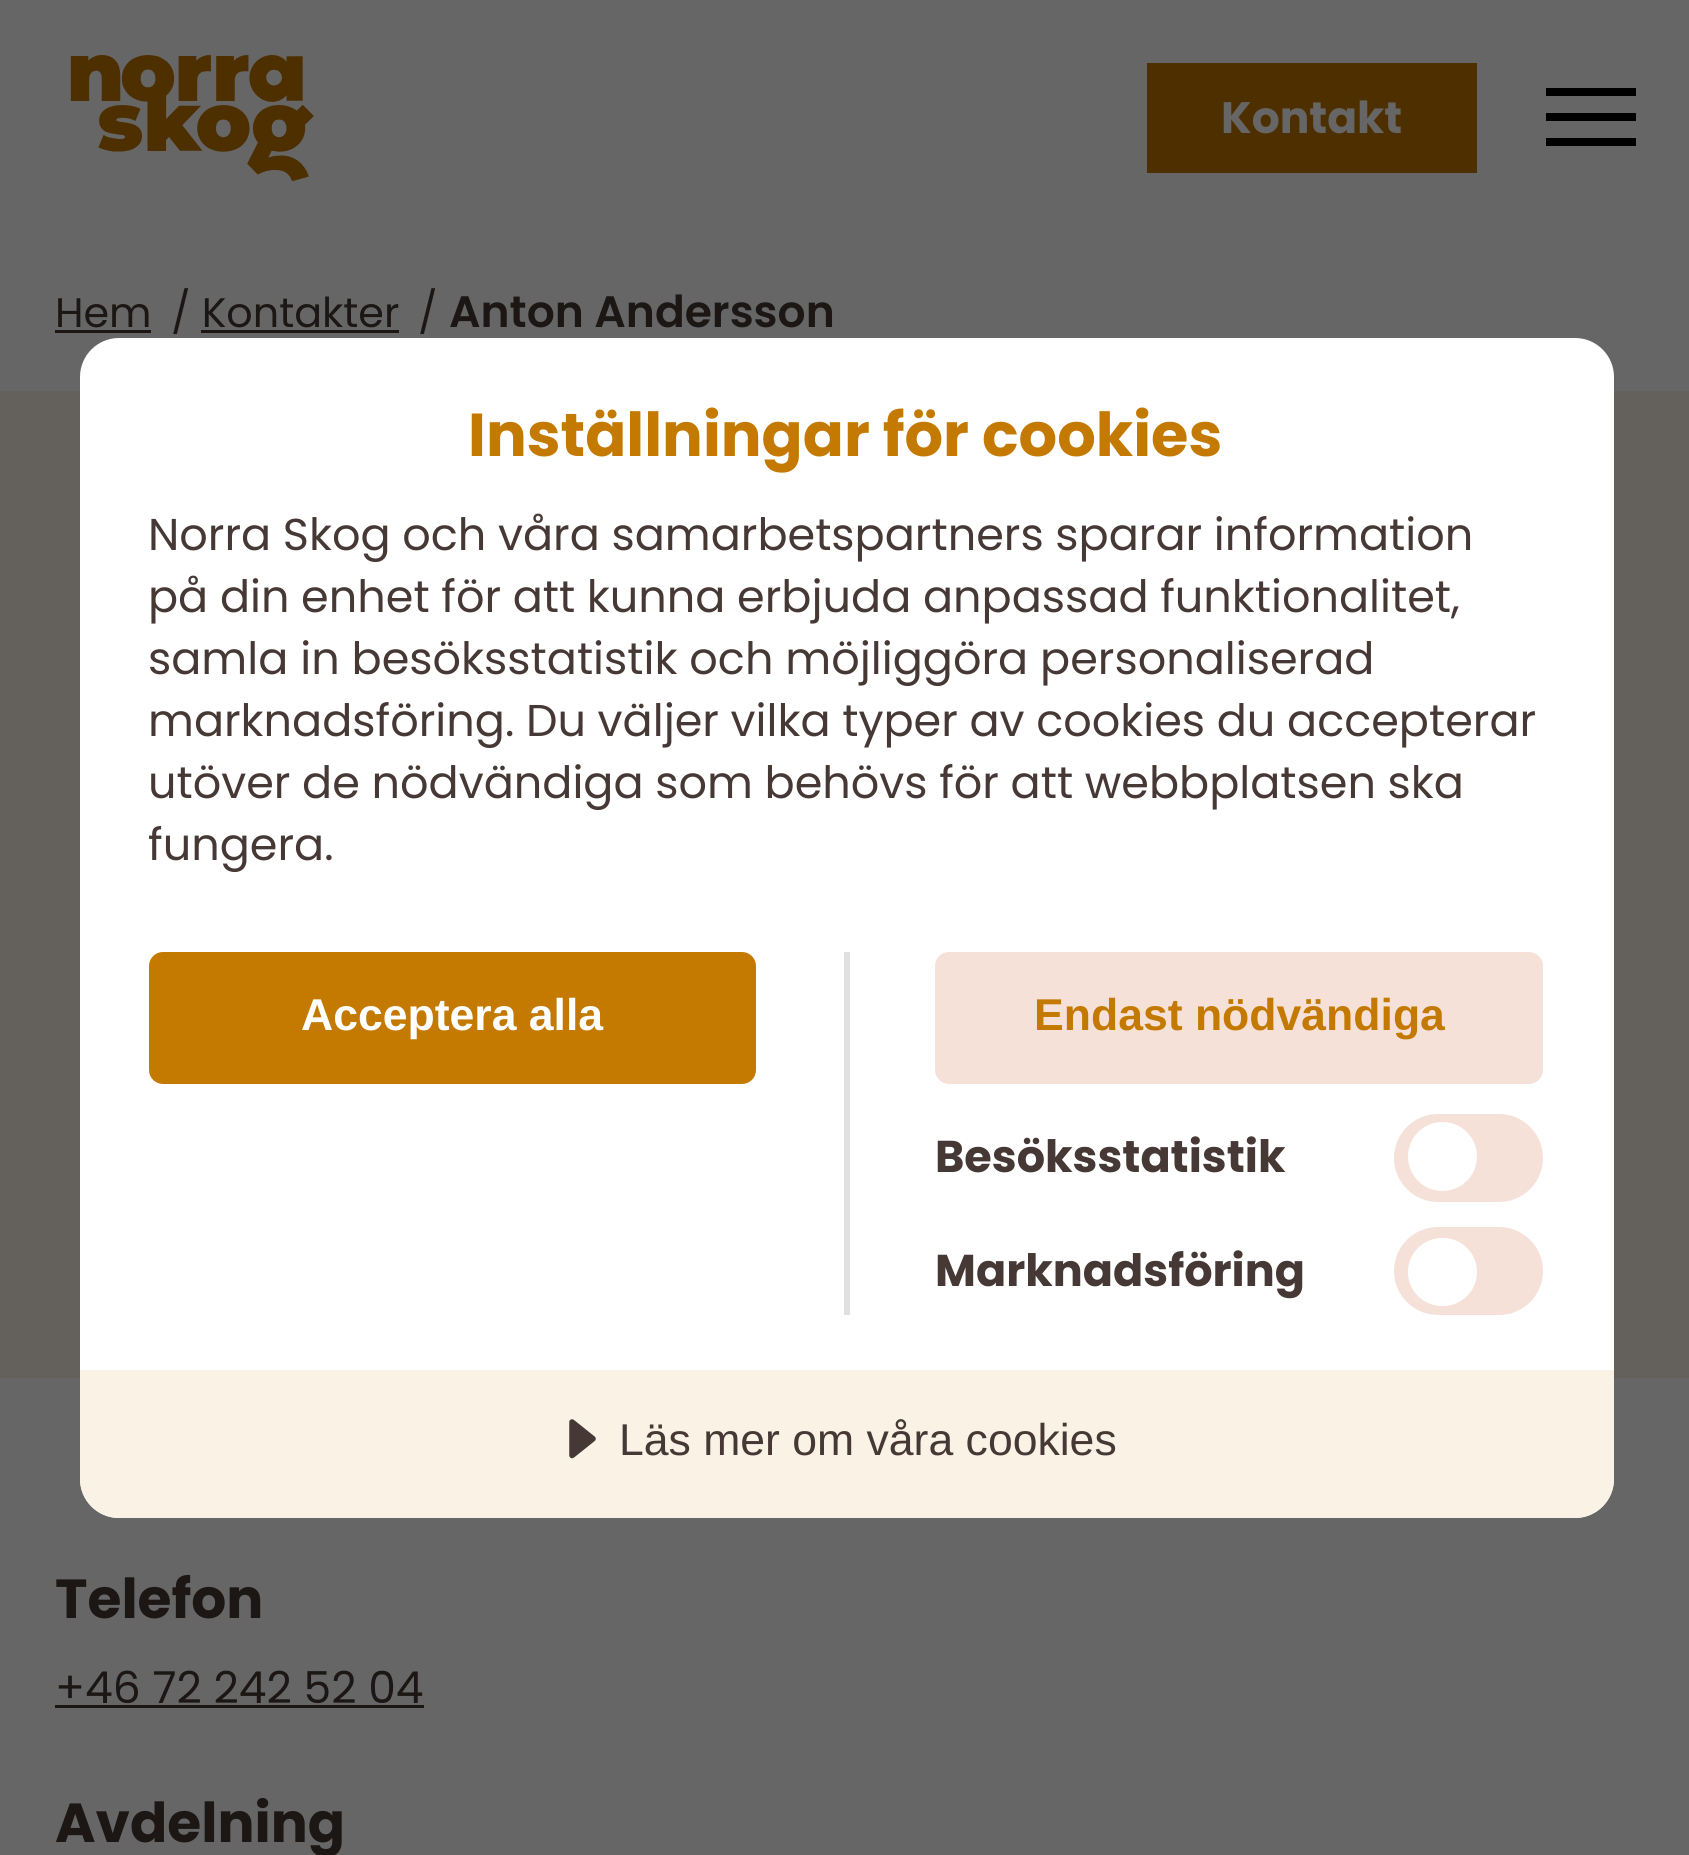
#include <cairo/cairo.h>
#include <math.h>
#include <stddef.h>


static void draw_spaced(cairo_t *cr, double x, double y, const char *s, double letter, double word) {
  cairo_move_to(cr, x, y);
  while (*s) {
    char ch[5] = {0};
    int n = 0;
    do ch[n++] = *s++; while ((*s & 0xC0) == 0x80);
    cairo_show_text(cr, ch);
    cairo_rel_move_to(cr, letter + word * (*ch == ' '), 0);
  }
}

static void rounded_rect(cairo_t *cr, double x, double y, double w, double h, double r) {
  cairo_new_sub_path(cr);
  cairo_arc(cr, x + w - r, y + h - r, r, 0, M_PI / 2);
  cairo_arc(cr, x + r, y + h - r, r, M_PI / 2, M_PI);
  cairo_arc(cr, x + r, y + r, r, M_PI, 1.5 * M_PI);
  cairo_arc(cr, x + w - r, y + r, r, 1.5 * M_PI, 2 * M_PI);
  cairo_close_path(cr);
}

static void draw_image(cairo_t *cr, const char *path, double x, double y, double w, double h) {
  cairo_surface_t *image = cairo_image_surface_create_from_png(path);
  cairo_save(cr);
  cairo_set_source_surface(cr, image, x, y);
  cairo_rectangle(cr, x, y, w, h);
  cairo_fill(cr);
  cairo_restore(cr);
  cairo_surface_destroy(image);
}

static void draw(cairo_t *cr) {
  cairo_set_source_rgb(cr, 102 / 255.0, 102 / 255.0, 102 / 255.0);
  cairo_paint(cr);
  draw_image(cr, "images/1.png", 70, 55, 244, 126);
  cairo_set_source_rgb(cr, 78 / 255.0, 48 / 255.0, 0);
  cairo_rectangle(cr, 1147, 63, 330, 110);
  cairo_fill(cr);
  cairo_set_source_rgb(cr, 0, 0, 0);
  cairo_rectangle(cr, 1546, 88, 90, 8);
  cairo_fill(cr);
  cairo_rectangle(cr, 1546, 113, 90, 8);
  cairo_fill(cr);
  cairo_rectangle(cr, 1546, 138, 90, 8);
  cairo_fill(cr);
  cairo_set_source_rgb(cr, 28 / 255.0, 23 / 255.0, 21 / 255.0);
  cairo_rectangle(cr, 55, 330, 96, 3);
  cairo_fill(cr);
  cairo_rectangle(cr, 201, 330, 198, 3);
  cairo_fill(cr);
  cairo_set_source_rgb(cr, 100 / 255.0, 97 / 255.0, 92 / 255.0);
  cairo_rectangle(cr, 0, 391, 1689, 987);
  cairo_fill(cr);
  cairo_set_source_rgb(cr, 1, 1, 1);
  rounded_rect(cr, 80, 338, 1534, 1180, 39);
  cairo_fill(cr);
  cairo_set_source_rgb(cr, 224 / 255.0, 224 / 255.0, 224 / 255.0);
  cairo_rectangle(cr, 844, 952, 6, 363);
  cairo_fill(cr);
  cairo_set_source_rgb(cr, 196 / 255.0, 121 / 255.0, 0);
  rounded_rect(cr, 149, 952, 607, 132, 14);
  cairo_fill(cr);
  cairo_set_source_rgb(cr, 245 / 255.0, 225 / 255.0, 216 / 255.0);
  rounded_rect(cr, 935, 952, 608, 132, 14);
  cairo_fill(cr);
  rounded_rect(cr, 1394, 1114, 149, 88, 44);
  cairo_fill(cr);
  cairo_set_source_rgb(cr, 1, 1, 1);
  cairo_arc(cr, 1442.5, 1156.5, 34.5, 0, 2 * M_PI);
  cairo_fill(cr);
  cairo_set_source_rgb(cr, 245 / 255.0, 225 / 255.0, 216 / 255.0);
  rounded_rect(cr, 1394, 1227, 149, 88, 44);
  cairo_fill(cr);
  cairo_set_source_rgb(cr, 1, 1, 1);
  rounded_rect(cr, 1408, 1238, 69, 68, 34);
  cairo_fill(cr);
  cairo_set_source_rgb(cr, 250 / 255.0, 242 / 255.0, 229 / 255.0);
  cairo_new_path(cr);
  cairo_move_to(cr, 80, 1370);
  cairo_line_to(cr, 1614, 1370);
  cairo_line_to(cr, 1614, 1479);
  cairo_curve_to(cr, 1614, 1500.5, 1596.5, 1518, 1575, 1518);
  cairo_line_to(cr, 119, 1518);
  cairo_curve_to(cr, 97.5, 1518, 80, 1500.5, 80, 1479);
  cairo_close_path(cr);
  cairo_fill(cr);
  draw_image(cr, "images/2.png", 569, 1419, 27, 40);
  cairo_set_source_rgb(cr, 28 / 255.0, 23 / 255.0, 21 / 255.0);
  cairo_rectangle(cr, 55, 1705, 369, 3);
  cairo_fill(cr);
  cairo_select_font_face(cr, "Poppins", CAIRO_FONT_SLANT_NORMAL, CAIRO_FONT_WEIGHT_BOLD);
  cairo_set_font_size(cr, 44);
  cairo_set_source_rgb(cr, 102 / 255.0, 102 / 255.0, 102 / 255.0);
  cairo_move_to(cr, 1221, 133);
  cairo_show_text(cr, "Kontakt");
  cairo_select_font_face(cr, "Poppins", CAIRO_FONT_SLANT_NORMAL, CAIRO_FONT_WEIGHT_NORMAL);
  cairo_set_font_size(cr, 41.25);
  cairo_set_source_rgb(cr, 28 / 255.0, 23 / 255.0, 21 / 255.0);
  cairo_move_to(cr, 55, 327);
  cairo_show_text(cr, "Hem");
  cairo_move_to(cr, 171, 327);
  cairo_show_text(cr, "/ Kontakter");
  cairo_move_to(cr, 418, 327);
  cairo_show_text(cr, "/");
  cairo_select_font_face(cr, "Poppins SemiBold", CAIRO_FONT_SLANT_NORMAL, CAIRO_FONT_WEIGHT_NORMAL);
  cairo_set_font_size(cr, 44);
  cairo_move_to(cr, 449, 327);
  cairo_show_text(cr, "Anton Andersson");
  cairo_select_font_face(cr, "Poppins", CAIRO_FONT_SLANT_NORMAL, CAIRO_FONT_WEIGHT_BOLD);
  cairo_set_font_size(cr, 60.6);
  cairo_set_source_rgb(cr, 196 / 255.0, 121 / 255.0, 0);
  cairo_move_to(cr, 468, 456);
  cairo_show_text(cr, "Inställningar för cookies");
  cairo_select_font_face(cr, "Poppins", CAIRO_FONT_SLANT_NORMAL, CAIRO_FONT_WEIGHT_NORMAL);
  cairo_set_font_size(cr, 44.55);
  cairo_set_source_rgb(cr, 70 / 255.0, 57 / 255.0, 53 / 255.0);
  draw_spaced(cr, 148, 550, "Norra Skog och våra samarbetspartners sparar information", 0, -0.25);
  draw_spaced(cr, 148, 612, "på din enhet för att kunna erbjuda anpassad funktionalitet,", 0, -0.25);
  cairo_move_to(cr, 148, 674);
  cairo_show_text(cr, "samla in besöksstatistik och möjliggöra personaliserad");
  draw_spaced(cr, 148, 736, "marknadsföring. Du väljer vilka typer av cookies du accepterar", 0, -0.25);
  draw_spaced(cr, 148, 798, "utöver de nödvändiga som behövs för att webbplatsen ska", 0, -0.25);
  cairo_save(cr);
  cairo_rectangle(cr, 149, 473, 1394, 404);
  cairo_clip(cr);
  cairo_move_to(cr, 148, 860);
  cairo_show_text(cr, "fungera.");
  cairo_restore(cr);
  cairo_select_font_face(cr, "Liberation Sans", CAIRO_FONT_SLANT_NORMAL, CAIRO_FONT_WEIGHT_BOLD);
  cairo_set_source_rgb(cr, 1, 1, 1);
  cairo_move_to(cr, 301, 1030);
  cairo_show_text(cr, "Acceptera alla");
  cairo_set_source_rgb(cr, 196 / 255.0, 121 / 255.0, 0);
  cairo_move_to(cr, 1034, 1030);
  cairo_show_text(cr, "Endast nödvändiga");
  cairo_select_font_face(cr, "Poppins", CAIRO_FONT_SLANT_NORMAL, CAIRO_FONT_WEIGHT_BOLD);
  cairo_set_source_rgb(cr, 70 / 255.0, 57 / 255.0, 53 / 255.0);
  cairo_move_to(cr, 935, 1172);
  cairo_show_text(cr, "Besöksstatistik");
  cairo_move_to(cr, 935, 1286);
  cairo_show_text(cr, "Marknadsföring");
  cairo_select_font_face(cr, "Liberation Sans", CAIRO_FONT_SLANT_NORMAL, CAIRO_FONT_WEIGHT_NORMAL);
  cairo_move_to(cr, 619, 1455);
  cairo_show_text(cr, "Läs mer om våra cookies");
  cairo_select_font_face(cr, "Poppins", CAIRO_FONT_SLANT_NORMAL, CAIRO_FONT_WEIGHT_BOLD);
  cairo_set_font_size(cr, 55);
  cairo_set_source_rgb(cr, 28 / 255.0, 23 / 255.0, 21 / 255.0);
  cairo_move_to(cr, 55, 1618);
  cairo_show_text(cr, "Telefon");
  cairo_select_font_face(cr, "Poppins", CAIRO_FONT_SLANT_NORMAL, CAIRO_FONT_WEIGHT_NORMAL);
  cairo_set_font_size(cr, 44);
  cairo_move_to(cr, 55, 1703);
  cairo_show_text(cr, "+46 72 242 52 04");
  cairo_select_font_face(cr, "Poppins", CAIRO_FONT_SLANT_NORMAL, CAIRO_FONT_WEIGHT_BOLD);
  cairo_set_font_size(cr, 55);
  cairo_move_to(cr, 55, 1842);
  cairo_show_text(cr, "Avdelning");
}

int main(void) {
  cairo_surface_t *surface = cairo_image_surface_create(CAIRO_FORMAT_RGB24, 1689, 1855);
  cairo_t *cr = cairo_create(surface);
  cairo_font_options_t *options = cairo_font_options_create();
  cairo_font_options_set_hint_metrics(options, CAIRO_HINT_METRICS_OFF);
  cairo_font_options_set_hint_style(options, CAIRO_HINT_STYLE_NONE);
  cairo_set_font_options(cr, options);
  cairo_set_miter_limit(cr, 4);
  draw(cr);
  cairo_surface_write_to_png(surface, "out.png");
  cairo_font_options_destroy(options);
  cairo_destroy(cr);
  cairo_surface_destroy(surface);
  return 0;
}
